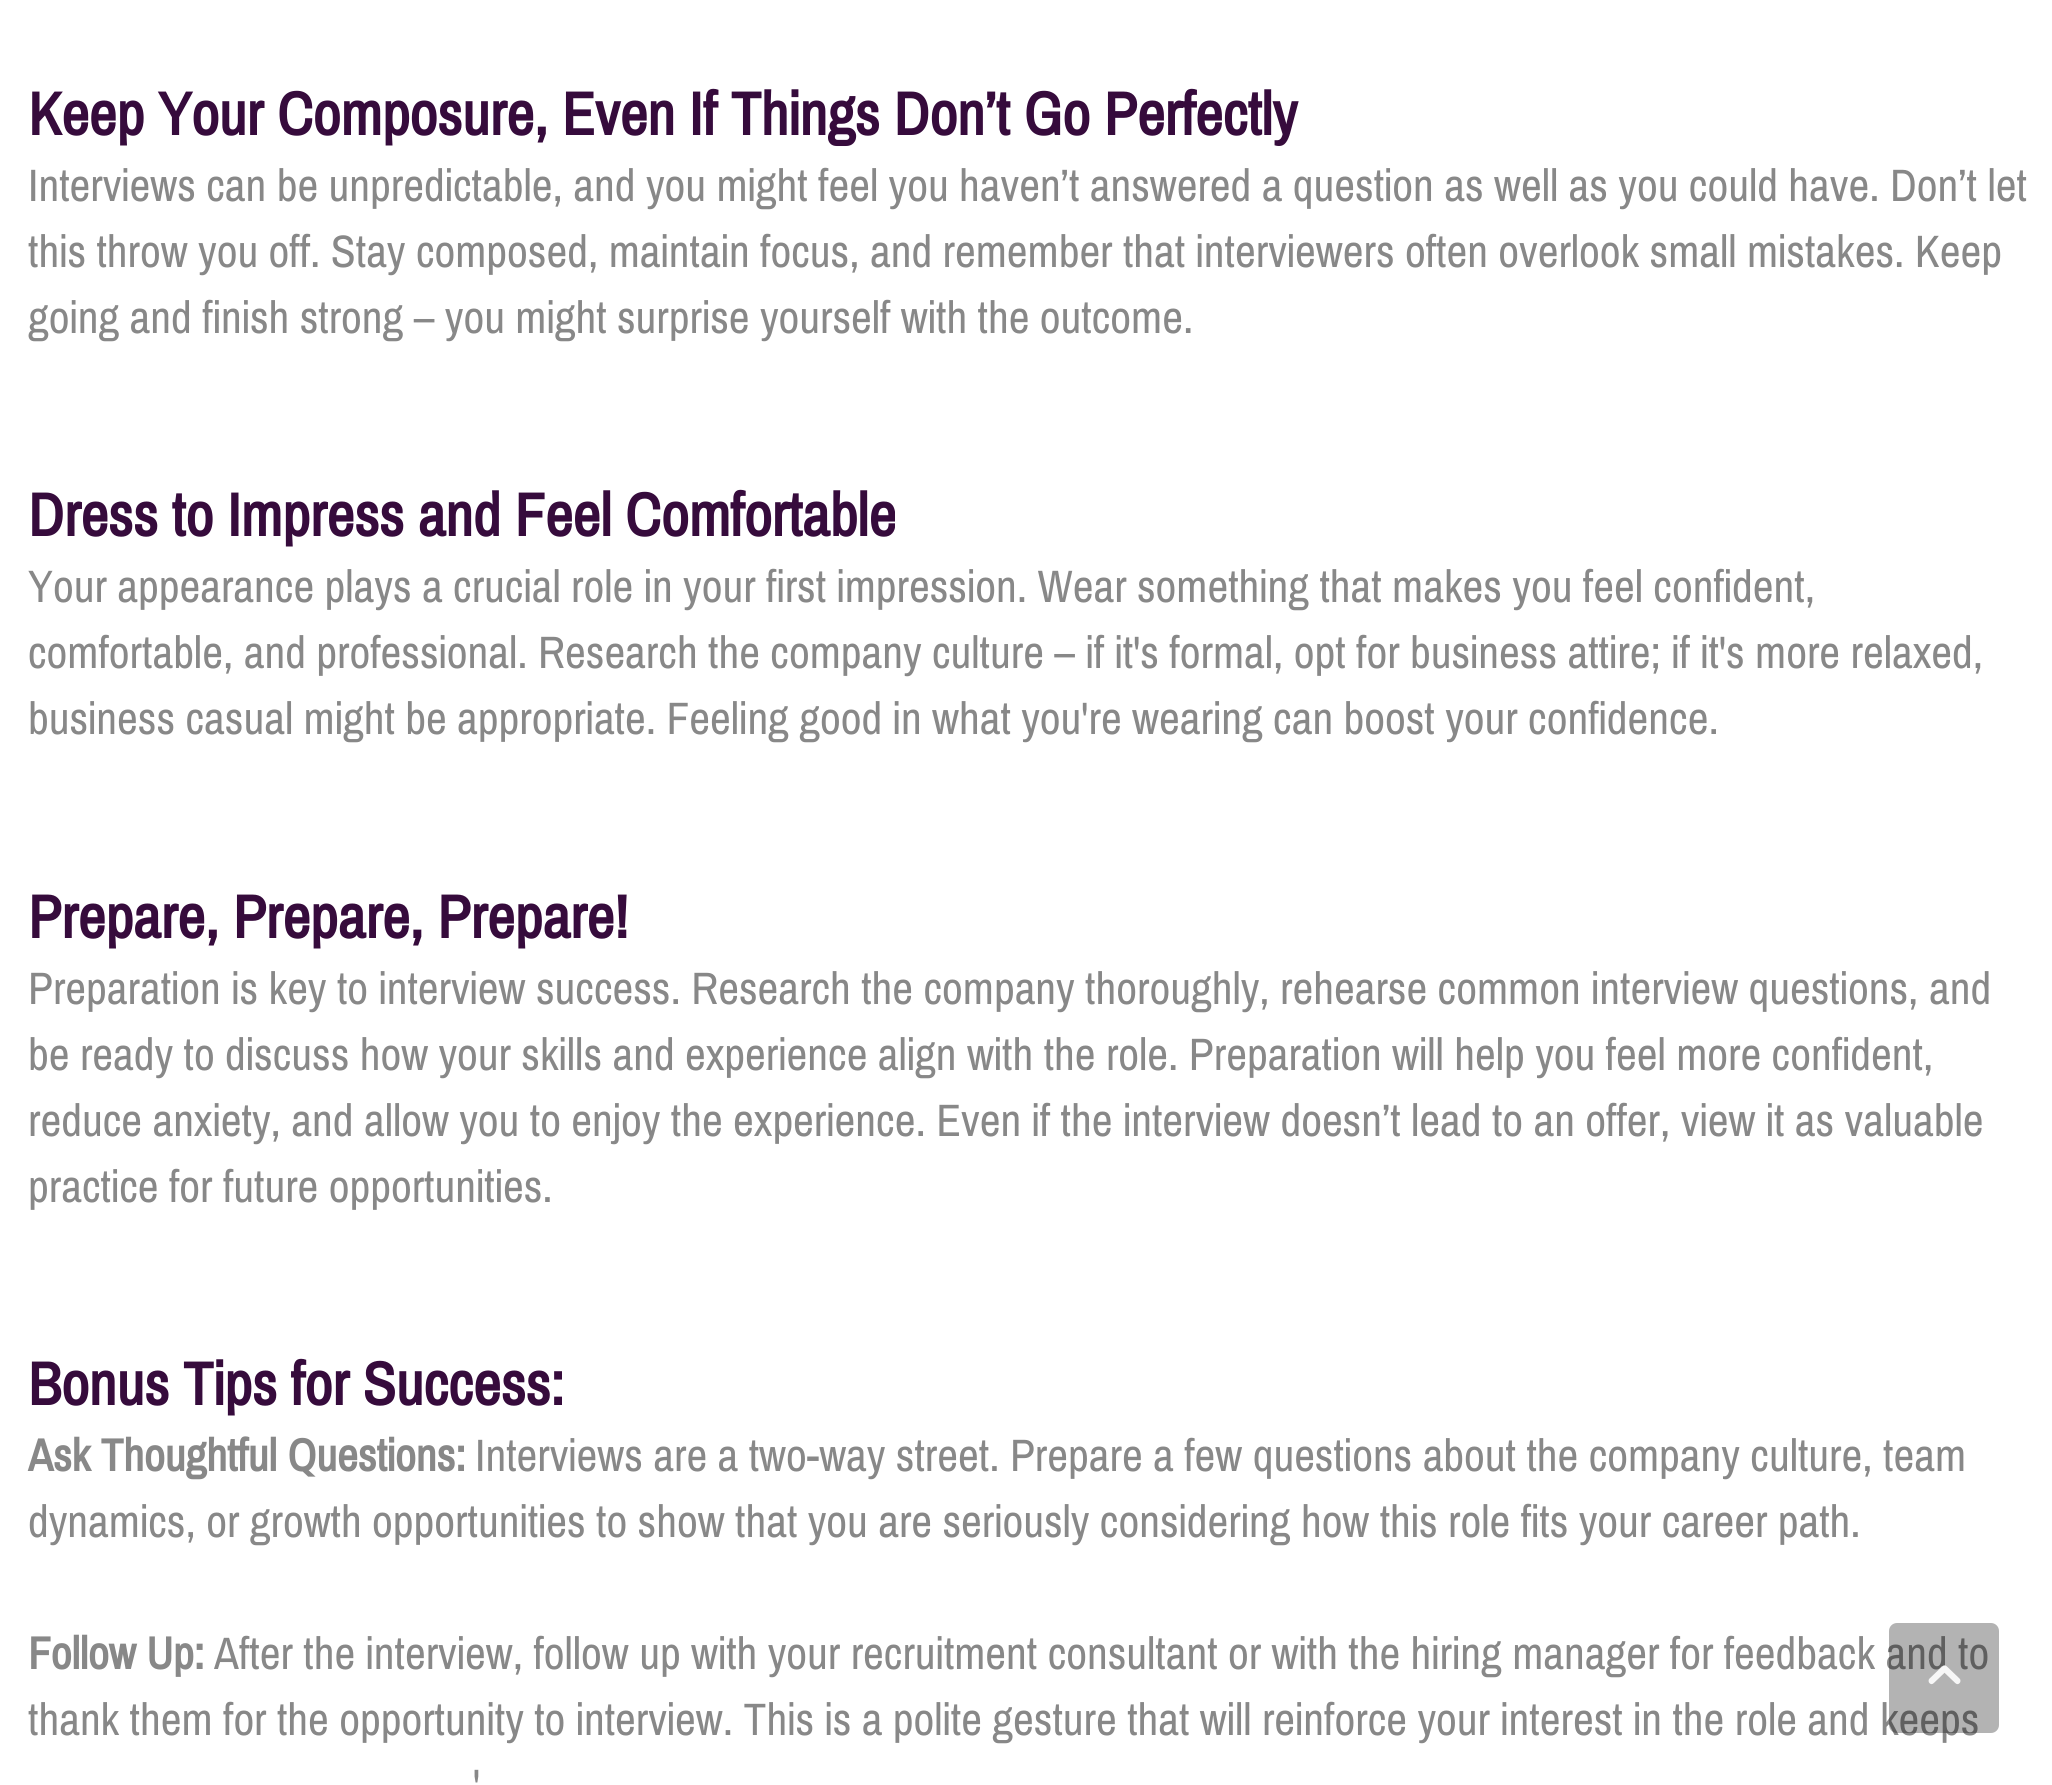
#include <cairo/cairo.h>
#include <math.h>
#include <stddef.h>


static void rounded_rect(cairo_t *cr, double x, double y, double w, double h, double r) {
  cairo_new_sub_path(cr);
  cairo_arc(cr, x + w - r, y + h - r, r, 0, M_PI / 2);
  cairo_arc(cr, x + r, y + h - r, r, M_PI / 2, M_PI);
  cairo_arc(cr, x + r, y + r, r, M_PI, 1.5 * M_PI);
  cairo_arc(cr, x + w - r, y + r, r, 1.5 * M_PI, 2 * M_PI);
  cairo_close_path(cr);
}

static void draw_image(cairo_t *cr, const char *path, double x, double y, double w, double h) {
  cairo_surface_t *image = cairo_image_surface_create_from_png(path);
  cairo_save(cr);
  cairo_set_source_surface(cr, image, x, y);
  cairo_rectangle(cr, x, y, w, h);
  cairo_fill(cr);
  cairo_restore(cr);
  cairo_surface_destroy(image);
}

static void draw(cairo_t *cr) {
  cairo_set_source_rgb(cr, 1, 1, 1);
  cairo_paint(cr);
  cairo_select_font_face(cr, "Pragati Narrow", CAIRO_FONT_SLANT_NORMAL, CAIRO_FONT_WEIGHT_BOLD);
  cairo_set_font_size(cr, 66);
  cairo_set_source_rgb(cr, 54 / 255.0, 11 / 255.0, 60 / 255.0);
  cairo_move_to(cr, 28, 135);
  cairo_show_text(cr, "Keep Your Composure, Even If Things Don’t Go Perfectly");
  cairo_select_font_face(cr, "Pragati Narrow", CAIRO_FONT_SLANT_NORMAL, CAIRO_FONT_WEIGHT_NORMAL);
  cairo_set_font_size(cr, 49.5);
  cairo_set_source_rgb(cr, 136 / 255.0, 136 / 255.0, 136 / 255.0);
  cairo_move_to(cr, 28, 201);
  cairo_show_text(cr, "Interviews can be unpredictable, and you might feel you haven’t answered a question as well as you could have. Don’t let");
  cairo_move_to(cr, 28, 267);
  cairo_show_text(cr, "this throw you off. Stay composed, maintain focus, and remember that interviewers often overlook small mistakes. Keep");
  cairo_move_to(cr, 28, 333);
  cairo_show_text(cr, "going and finish strong – you might surprise yourself with the outcome.");
  cairo_select_font_face(cr, "Pragati Narrow", CAIRO_FONT_SLANT_NORMAL, CAIRO_FONT_WEIGHT_BOLD);
  cairo_set_font_size(cr, 66);
  cairo_set_source_rgb(cr, 54 / 255.0, 11 / 255.0, 60 / 255.0);
  cairo_move_to(cr, 28, 536);
  cairo_show_text(cr, "Dress to Impress and Feel Comfortable");
  cairo_select_font_face(cr, "Pragati Narrow", CAIRO_FONT_SLANT_NORMAL, CAIRO_FONT_WEIGHT_NORMAL);
  cairo_set_font_size(cr, 49.5);
  cairo_set_source_rgb(cr, 136 / 255.0, 136 / 255.0, 136 / 255.0);
  cairo_move_to(cr, 28, 602);
  cairo_show_text(cr, "Your appearance plays a crucial role in your first impression. Wear something that makes you feel confident,");
  cairo_move_to(cr, 28, 668);
  cairo_show_text(cr, "comfortable, and professional. Research the company culture – if it's formal, opt for business attire; if it's more relaxed,");
  cairo_move_to(cr, 28, 734);
  cairo_show_text(cr, "business casual might be appropriate. Feeling good in what you're wearing can boost your confidence.");
  cairo_select_font_face(cr, "Pragati Narrow", CAIRO_FONT_SLANT_NORMAL, CAIRO_FONT_WEIGHT_BOLD);
  cairo_set_font_size(cr, 66);
  cairo_set_source_rgb(cr, 54 / 255.0, 11 / 255.0, 60 / 255.0);
  cairo_move_to(cr, 28, 938);
  cairo_show_text(cr, "Prepare, Prepare, Prepare!");
  cairo_select_font_face(cr, "Pragati Narrow", CAIRO_FONT_SLANT_NORMAL, CAIRO_FONT_WEIGHT_NORMAL);
  cairo_set_font_size(cr, 49.5);
  cairo_set_source_rgb(cr, 136 / 255.0, 136 / 255.0, 136 / 255.0);
  cairo_move_to(cr, 28, 1004);
  cairo_show_text(cr, "Preparation is key to interview success. Research the company thoroughly, rehearse common interview questions, and");
  cairo_move_to(cr, 28, 1070);
  cairo_show_text(cr, "be ready to discuss how your skills and experience align with the role. Preparation will help you feel more confident,");
  cairo_move_to(cr, 28, 1136);
  cairo_show_text(cr, "reduce anxiety, and allow you to enjoy the experience. Even if the interview doesn’t lead to an offer, view it as valuable");
  cairo_move_to(cr, 28, 1202);
  cairo_show_text(cr, "practice for future opportunities.");
  cairo_select_font_face(cr, "Pragati Narrow", CAIRO_FONT_SLANT_NORMAL, CAIRO_FONT_WEIGHT_BOLD);
  cairo_set_font_size(cr, 66);
  cairo_set_source_rgb(cr, 54 / 255.0, 11 / 255.0, 60 / 255.0);
  cairo_move_to(cr, 28, 1405);
  cairo_show_text(cr, "Bonus Tips for Success:");
  cairo_set_font_size(cr, 49.5);
  cairo_set_source_rgb(cr, 136 / 255.0, 136 / 255.0, 136 / 255.0);
  cairo_move_to(cr, 28, 1471);
  cairo_show_text(cr, "Ask Thoughtful Questions:");
  cairo_select_font_face(cr, "Pragati Narrow", CAIRO_FONT_SLANT_NORMAL, CAIRO_FONT_WEIGHT_NORMAL);
  cairo_move_to(cr, 475, 1471);
  cairo_show_text(cr, "Interviews are a two-way street. Prepare a few questions about the company culture, team");
  cairo_move_to(cr, 28, 1537);
  cairo_show_text(cr, "dynamics, or growth opportunities to show that you are seriously considering how this role fits your career path.");
  cairo_select_font_face(cr, "Pragati Narrow", CAIRO_FONT_SLANT_NORMAL, CAIRO_FONT_WEIGHT_BOLD);
  cairo_move_to(cr, 28, 1669);
  cairo_show_text(cr, "Follow Up:");
  cairo_select_font_face(cr, "Pragati Narrow", CAIRO_FONT_SLANT_NORMAL, CAIRO_FONT_WEIGHT_NORMAL);
  cairo_move_to(cr, 214, 1669);
  cairo_show_text(cr, "After the interview, follow up with your recruitment consultant or with the hiring manager for feedback and to");
  cairo_move_to(cr, 28, 1735);
  cairo_show_text(cr, "thank them for the opportunity to interview. This is a polite gesture that will reinforce your interest in the role and keeps");
  cairo_move_to(cr, 473, 1801);
  cairo_show_text(cr, "'");
  cairo_set_source_rgba(cr, 0, 0, 0, 0.3);
  rounded_rect(cr, 1889, 1623, 110, 110, 8);
  cairo_fill(cr);
  draw_image(cr, "images/1.png", 1928, 1665, 33, 20);
}

int main(void) {
  cairo_surface_t *surface = cairo_image_surface_create(CAIRO_FORMAT_RGB24, 2052, 1785);
  cairo_t *cr = cairo_create(surface);
  cairo_font_options_t *options = cairo_font_options_create();
  cairo_font_options_set_hint_metrics(options, CAIRO_HINT_METRICS_OFF);
  cairo_font_options_set_hint_style(options, CAIRO_HINT_STYLE_NONE);
  cairo_set_font_options(cr, options);
  cairo_set_miter_limit(cr, 4);
  draw(cr);
  cairo_surface_write_to_png(surface, "out.png");
  cairo_font_options_destroy(options);
  cairo_destroy(cr);
  cairo_surface_destroy(surface);
  return 0;
}
